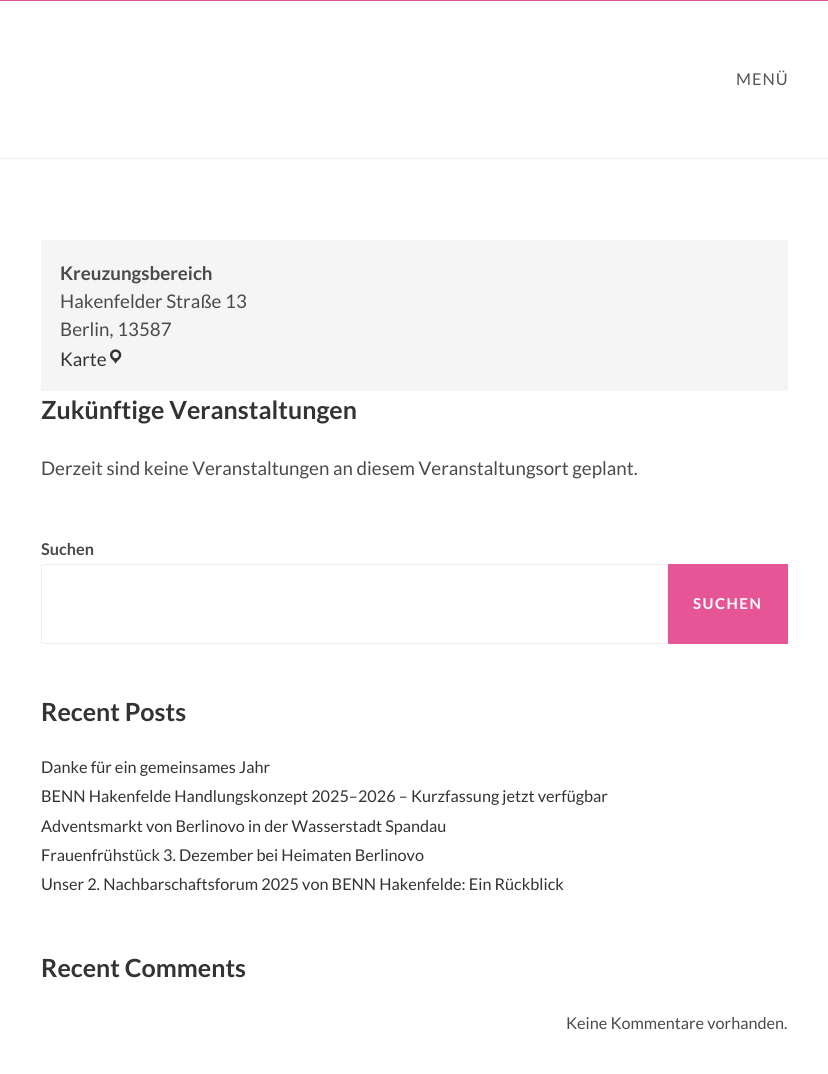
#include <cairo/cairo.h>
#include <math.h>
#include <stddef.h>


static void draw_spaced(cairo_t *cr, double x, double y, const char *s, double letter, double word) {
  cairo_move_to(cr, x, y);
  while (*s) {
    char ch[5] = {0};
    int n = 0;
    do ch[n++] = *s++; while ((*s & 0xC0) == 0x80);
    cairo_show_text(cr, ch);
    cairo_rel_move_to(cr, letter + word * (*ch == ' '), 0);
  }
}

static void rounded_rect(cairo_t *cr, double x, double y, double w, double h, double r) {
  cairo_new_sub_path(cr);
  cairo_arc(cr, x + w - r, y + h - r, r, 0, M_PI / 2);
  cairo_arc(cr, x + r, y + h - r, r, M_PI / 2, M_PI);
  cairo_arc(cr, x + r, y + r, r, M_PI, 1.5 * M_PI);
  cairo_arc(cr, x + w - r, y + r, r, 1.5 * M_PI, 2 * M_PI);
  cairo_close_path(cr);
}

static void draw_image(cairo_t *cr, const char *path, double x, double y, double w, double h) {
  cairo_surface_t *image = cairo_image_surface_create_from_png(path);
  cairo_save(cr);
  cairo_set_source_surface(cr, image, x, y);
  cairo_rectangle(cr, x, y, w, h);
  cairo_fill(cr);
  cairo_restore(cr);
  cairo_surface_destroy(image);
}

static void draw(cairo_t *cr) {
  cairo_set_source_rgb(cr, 1, 1, 1);
  cairo_paint(cr);
  cairo_set_source_rgb(cr, 230 / 255.0, 86 / 255.0, 150 / 255.0);
  cairo_rectangle(cr, 0, 0, 828, 1);
  cairo_fill(cr);
  cairo_set_source_rgb(cr, 241 / 255.0, 241 / 255.0, 241 / 255.0);
  cairo_rectangle(cr, 0, 158, 828, 1);
  cairo_fill(cr);
  cairo_set_source_rgb(cr, 245 / 255.0, 245 / 255.0, 245 / 255.0);
  cairo_rectangle(cr, 41, 240, 747, 151);
  cairo_fill(cr);
  draw_image(cr, "images/1.png", 110, 349, 12, 15);
  rounded_rect(cr, 41.5, 564.5, 626, 79, 3.5);
  cairo_set_source_rgb(cr, 238 / 255.0, 238 / 255.0, 238 / 255.0);
  cairo_set_line_width(cr, 1);
  cairo_stroke(cr);
  cairo_set_source_rgb(cr, 230 / 255.0, 86 / 255.0, 150 / 255.0);
  rounded_rect(cr, 668, 564, 120, 80, 1);
  cairo_fill(cr);
  cairo_select_font_face(cr, "Lato", CAIRO_FONT_SLANT_NORMAL, CAIRO_FONT_WEIGHT_NORMAL);
  cairo_set_font_size(cr, 16.25);
  cairo_set_source_rgb(cr, 85 / 255.0, 85 / 255.0, 85 / 255.0);
  draw_spaced(cr, 736, 85, "MENÜ", 1, 0);
  cairo_select_font_face(cr, "Lato", CAIRO_FONT_SLANT_NORMAL, CAIRO_FONT_WEIGHT_BOLD);
  cairo_set_font_size(cr, 18.75);
  cairo_set_source_rgb(cr, 74 / 255.0, 74 / 255.0, 74 / 255.0);
  cairo_move_to(cr, 60, 280);
  cairo_show_text(cr, "Kreuzungsbereich");
  cairo_select_font_face(cr, "Lato", CAIRO_FONT_SLANT_NORMAL, CAIRO_FONT_WEIGHT_NORMAL);
  cairo_move_to(cr, 60, 308);
  cairo_show_text(cr, "Hakenfelder Straße 13");
  cairo_move_to(cr, 60, 336);
  cairo_show_text(cr, "Berlin, 13587");
  cairo_set_source_rgb(cr, 51 / 255.0, 51 / 255.0, 51 / 255.0);
  cairo_move_to(cr, 60, 366);
  cairo_show_text(cr, "Karte");
  cairo_select_font_face(cr, "Lato", CAIRO_FONT_SLANT_NORMAL, CAIRO_FONT_WEIGHT_BOLD);
  cairo_set_font_size(cr, 25);
  cairo_move_to(cr, 41, 419);
  cairo_show_text(cr, "Zukünftige Veranstaltungen");
  cairo_select_font_face(cr, "Lato", CAIRO_FONT_SLANT_NORMAL, CAIRO_FONT_WEIGHT_NORMAL);
  cairo_set_font_size(cr, 18.75);
  cairo_set_source_rgb(cr, 74 / 255.0, 74 / 255.0, 74 / 255.0);
  cairo_move_to(cr, 41, 475);
  cairo_show_text(cr, "Derzeit sind keine Veranstaltungen an diesem Veranstaltungsort geplant.");
  cairo_select_font_face(cr, "Lato", CAIRO_FONT_SLANT_NORMAL, CAIRO_FONT_WEIGHT_BOLD);
  cairo_set_font_size(cr, 16.25);
  cairo_move_to(cr, 41, 555);
  cairo_show_text(cr, "Suchen");
  cairo_set_font_size(cr, 15);
  cairo_set_source_rgb(cr, 1, 1, 1);
  draw_spaced(cr, 693, 609, "SUCHEN", 1.5, 0);
  cairo_set_font_size(cr, 25);
  cairo_set_source_rgb(cr, 51 / 255.0, 51 / 255.0, 51 / 255.0);
  cairo_move_to(cr, 41, 721);
  cairo_show_text(cr, "Recent Posts");
  cairo_select_font_face(cr, "Lato", CAIRO_FONT_SLANT_NORMAL, CAIRO_FONT_WEIGHT_NORMAL);
  cairo_set_font_size(cr, 16.25);
  cairo_move_to(cr, 41, 773);
  cairo_show_text(cr, "Danke für ein gemeinsames Jahr");
  cairo_move_to(cr, 41, 802);
  cairo_show_text(cr, "BENN Hakenfelde Handlungskonzept 2025–2026 – Kurzfassung jetzt verfügbar");
  cairo_move_to(cr, 41, 832);
  cairo_show_text(cr, "Adventsmarkt von Berlinovo in der Wasserstadt Spandau");
  cairo_move_to(cr, 41, 861);
  cairo_show_text(cr, "Frauenfrühstück 3. Dezember bei Heimaten Berlinovo");
  cairo_move_to(cr, 41, 890);
  cairo_show_text(cr, "Unser 2. Nachbarschaftsforum 2025 von BENN Hakenfelde: Ein Rückblick");
  cairo_select_font_face(cr, "Lato", CAIRO_FONT_SLANT_NORMAL, CAIRO_FONT_WEIGHT_BOLD);
  cairo_set_font_size(cr, 25);
  cairo_move_to(cr, 41, 977);
  cairo_show_text(cr, "Recent Comments");
  cairo_select_font_face(cr, "Lato", CAIRO_FONT_SLANT_NORMAL, CAIRO_FONT_WEIGHT_NORMAL);
  cairo_set_font_size(cr, 16.25);
  cairo_set_source_rgb(cr, 74 / 255.0, 74 / 255.0, 74 / 255.0);
  cairo_move_to(cr, 566, 1029);
  cairo_show_text(cr, "Keine Kommentare vorhanden.");
}

int main(void) {
  cairo_surface_t *surface = cairo_image_surface_create(CAIRO_FORMAT_RGB24, 828, 1074);
  cairo_t *cr = cairo_create(surface);
  cairo_font_options_t *options = cairo_font_options_create();
  cairo_font_options_set_hint_metrics(options, CAIRO_HINT_METRICS_OFF);
  cairo_font_options_set_hint_style(options, CAIRO_HINT_STYLE_NONE);
  cairo_set_font_options(cr, options);
  cairo_set_miter_limit(cr, 4);
  draw(cr);
  cairo_surface_write_to_png(surface, "out.png");
  cairo_font_options_destroy(options);
  cairo_destroy(cr);
  cairo_surface_destroy(surface);
  return 0;
}
